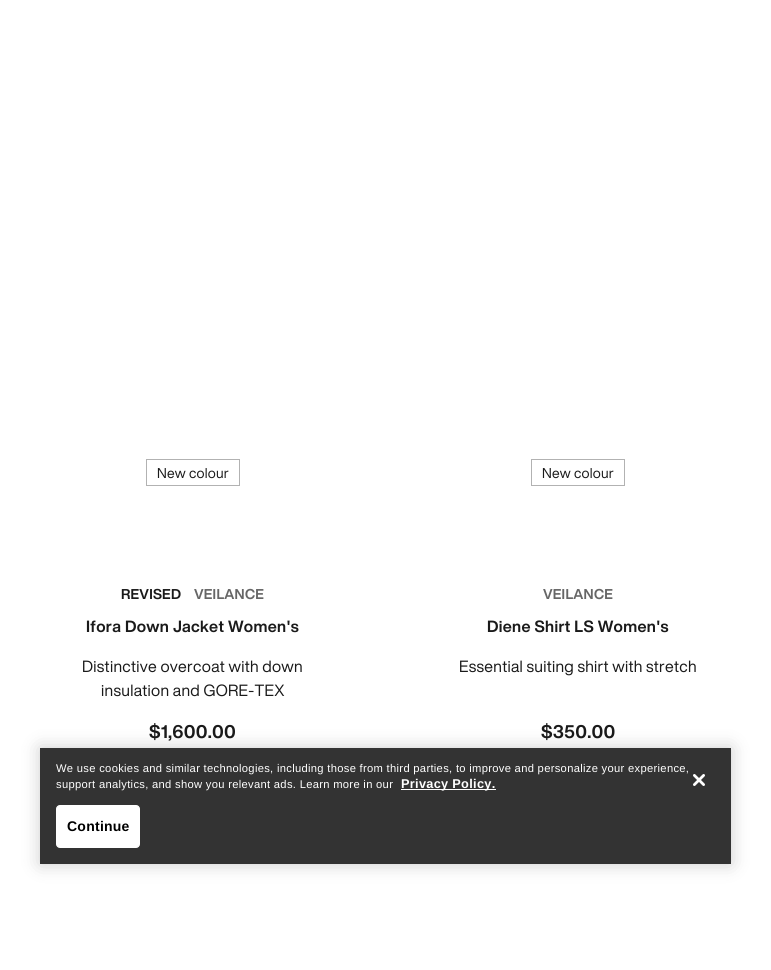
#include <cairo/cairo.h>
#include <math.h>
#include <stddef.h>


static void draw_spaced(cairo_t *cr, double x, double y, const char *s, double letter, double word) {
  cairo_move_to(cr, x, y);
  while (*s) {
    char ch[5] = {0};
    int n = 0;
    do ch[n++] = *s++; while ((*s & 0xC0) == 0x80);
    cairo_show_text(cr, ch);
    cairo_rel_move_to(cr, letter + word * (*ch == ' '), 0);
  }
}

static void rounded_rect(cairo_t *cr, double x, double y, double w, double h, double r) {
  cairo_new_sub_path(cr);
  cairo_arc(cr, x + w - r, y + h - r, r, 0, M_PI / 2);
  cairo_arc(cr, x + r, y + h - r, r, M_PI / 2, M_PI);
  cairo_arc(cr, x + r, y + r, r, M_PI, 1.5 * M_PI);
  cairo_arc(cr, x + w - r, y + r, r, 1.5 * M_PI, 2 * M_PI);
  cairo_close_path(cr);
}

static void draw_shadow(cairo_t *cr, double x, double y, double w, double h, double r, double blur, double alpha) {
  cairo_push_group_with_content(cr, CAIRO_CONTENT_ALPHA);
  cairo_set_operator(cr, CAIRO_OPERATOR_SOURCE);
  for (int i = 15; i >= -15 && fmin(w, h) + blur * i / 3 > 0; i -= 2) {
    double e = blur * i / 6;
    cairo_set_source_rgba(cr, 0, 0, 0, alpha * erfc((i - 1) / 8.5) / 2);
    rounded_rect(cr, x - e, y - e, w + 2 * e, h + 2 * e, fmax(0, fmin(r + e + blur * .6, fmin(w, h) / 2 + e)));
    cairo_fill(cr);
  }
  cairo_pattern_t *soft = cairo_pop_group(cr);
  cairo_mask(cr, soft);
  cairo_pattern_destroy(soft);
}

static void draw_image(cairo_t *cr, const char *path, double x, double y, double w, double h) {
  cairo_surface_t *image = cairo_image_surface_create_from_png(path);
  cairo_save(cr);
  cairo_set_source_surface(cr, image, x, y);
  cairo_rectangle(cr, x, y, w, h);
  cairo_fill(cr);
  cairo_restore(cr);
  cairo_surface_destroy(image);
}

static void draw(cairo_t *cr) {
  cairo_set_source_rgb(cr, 1, 1, 1);
  cairo_paint(cr);
  cairo_rectangle(cr, 146.5, 459.5, 93, 26);
  cairo_set_source_rgb(cr, 178 / 255.0, 178 / 255.0, 178 / 255.0);
  cairo_set_line_width(cr, 1);
  cairo_stroke(cr);
  cairo_rectangle(cr, 531.5, 459.5, 93, 26);
  cairo_stroke(cr);
  cairo_set_source_rgb(cr, 0, 0, 0);
  draw_shadow(cr, 40, 748, 691, 116, 0, 9, 0.2);
  cairo_set_source_rgb(cr, 51 / 255.0, 51 / 255.0, 51 / 255.0);
  cairo_rectangle(cr, 40, 748, 691, 116);
  cairo_fill(cr);
  cairo_set_source_rgb(cr, 1, 1, 1);
  cairo_rectangle(cr, 401, 789, 95, 1);
  cairo_fill(cr);
  rounded_rect(cr, 56.5, 805.5, 83, 42, 3.5);
  cairo_fill_preserve(cr);
  cairo_stroke(cr);
  draw_image(cr, "images/1.png", 693, 774, 12, 12);
  cairo_select_font_face(cr, "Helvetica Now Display", CAIRO_FONT_SLANT_NORMAL, CAIRO_FONT_WEIGHT_NORMAL);
  cairo_set_font_size(cr, 14);
  cairo_set_source_rgb(cr, 26 / 255.0, 26 / 255.0, 26 / 255.0);
  draw_spaced(cr, 157, 478, "New colour", 0.25, 0);
  cairo_select_font_face(cr, "Helvetica Now Display", CAIRO_FONT_SLANT_NORMAL, CAIRO_FONT_WEIGHT_BOLD);
  draw_spaced(cr, 121, 599, "REVISED", 0.25, 0);
  cairo_set_source_rgb(cr, 102 / 255.0, 102 / 255.0, 102 / 255.0);
  draw_spaced(cr, 194, 599, "VEILANCE", 0.25, 0);
  cairo_set_font_size(cr, 16);
  cairo_set_source_rgb(cr, 26 / 255.0, 26 / 255.0, 26 / 255.0);
  draw_spaced(cr, 86, 632, "Ifora Down Jacket Women's", 0.3, 0);
  cairo_select_font_face(cr, "Helvetica Now Display", CAIRO_FONT_SLANT_NORMAL, CAIRO_FONT_WEIGHT_NORMAL);
  draw_spaced(cr, 82, 672, "Distinctive overcoat with down", 0.3, 0);
  draw_spaced(cr, 101, 696, "insulation and GORE-TEX", 0.3, 0);
  cairo_select_font_face(cr, "Helvetica Now Display", CAIRO_FONT_SLANT_NORMAL, CAIRO_FONT_WEIGHT_BOLD);
  cairo_set_font_size(cr, 18);
  draw_spaced(cr, 149, 738, "$1,600.00", 0.25, 0);
  cairo_select_font_face(cr, "Helvetica Now Display", CAIRO_FONT_SLANT_NORMAL, CAIRO_FONT_WEIGHT_NORMAL);
  cairo_set_font_size(cr, 14);
  draw_spaced(cr, 542, 478, "New colour", 0.25, 0);
  cairo_select_font_face(cr, "Helvetica Now Display", CAIRO_FONT_SLANT_NORMAL, CAIRO_FONT_WEIGHT_BOLD);
  cairo_set_source_rgb(cr, 102 / 255.0, 102 / 255.0, 102 / 255.0);
  draw_spaced(cr, 543, 599, "VEILANCE", 0.25, 0);
  cairo_set_font_size(cr, 16);
  cairo_set_source_rgb(cr, 26 / 255.0, 26 / 255.0, 26 / 255.0);
  draw_spaced(cr, 487, 632, "Diene Shirt LS Women's", 0.3, 0);
  cairo_select_font_face(cr, "Helvetica Now Display", CAIRO_FONT_SLANT_NORMAL, CAIRO_FONT_WEIGHT_NORMAL);
  draw_spaced(cr, 459, 672, "Essential suiting shirt with stretch", 0.3, 0);
  cairo_select_font_face(cr, "Helvetica Now Display", CAIRO_FONT_SLANT_NORMAL, CAIRO_FONT_WEIGHT_BOLD);
  cairo_set_font_size(cr, 18);
  draw_spaced(cr, 541, 738, "$350.00", 0.25, 0);
  cairo_select_font_face(cr, "Liberation Sans", CAIRO_FONT_SLANT_NORMAL, CAIRO_FONT_WEIGHT_NORMAL);
  cairo_set_font_size(cr, 11.2);
  cairo_set_source_rgb(cr, 1, 1, 1);
  draw_spaced(cr, 56, 772, "We use cookies and similar technologies, including those from third parties, to improve and personalize your experience,", 0.3, 0);
  draw_spaced(cr, 56, 788, "support analytics, and show you relevant ads. Learn more in our", 0.3, 0);
  cairo_select_font_face(cr, "Liberation Sans", CAIRO_FONT_SLANT_NORMAL, CAIRO_FONT_WEIGHT_BOLD);
  cairo_set_font_size(cr, 12.75);
  draw_spaced(cr, 401, 788, "Privacy Policy.", 0.3, 0);
  cairo_set_font_size(cr, 14);
  cairo_set_source_rgb(cr, 0, 0, 0);
  draw_spaced(cr, 67, 831, "Continue", 0.25, 0);
}

int main(void) {
  cairo_surface_t *surface = cairo_image_surface_create(CAIRO_FORMAT_RGB24, 771, 970);
  cairo_t *cr = cairo_create(surface);
  cairo_font_options_t *options = cairo_font_options_create();
  cairo_font_options_set_hint_metrics(options, CAIRO_HINT_METRICS_OFF);
  cairo_font_options_set_hint_style(options, CAIRO_HINT_STYLE_NONE);
  cairo_set_font_options(cr, options);
  cairo_set_miter_limit(cr, 4);
  draw(cr);
  cairo_surface_write_to_png(surface, "out.png");
  cairo_font_options_destroy(options);
  cairo_destroy(cr);
  cairo_surface_destroy(surface);
  return 0;
}
